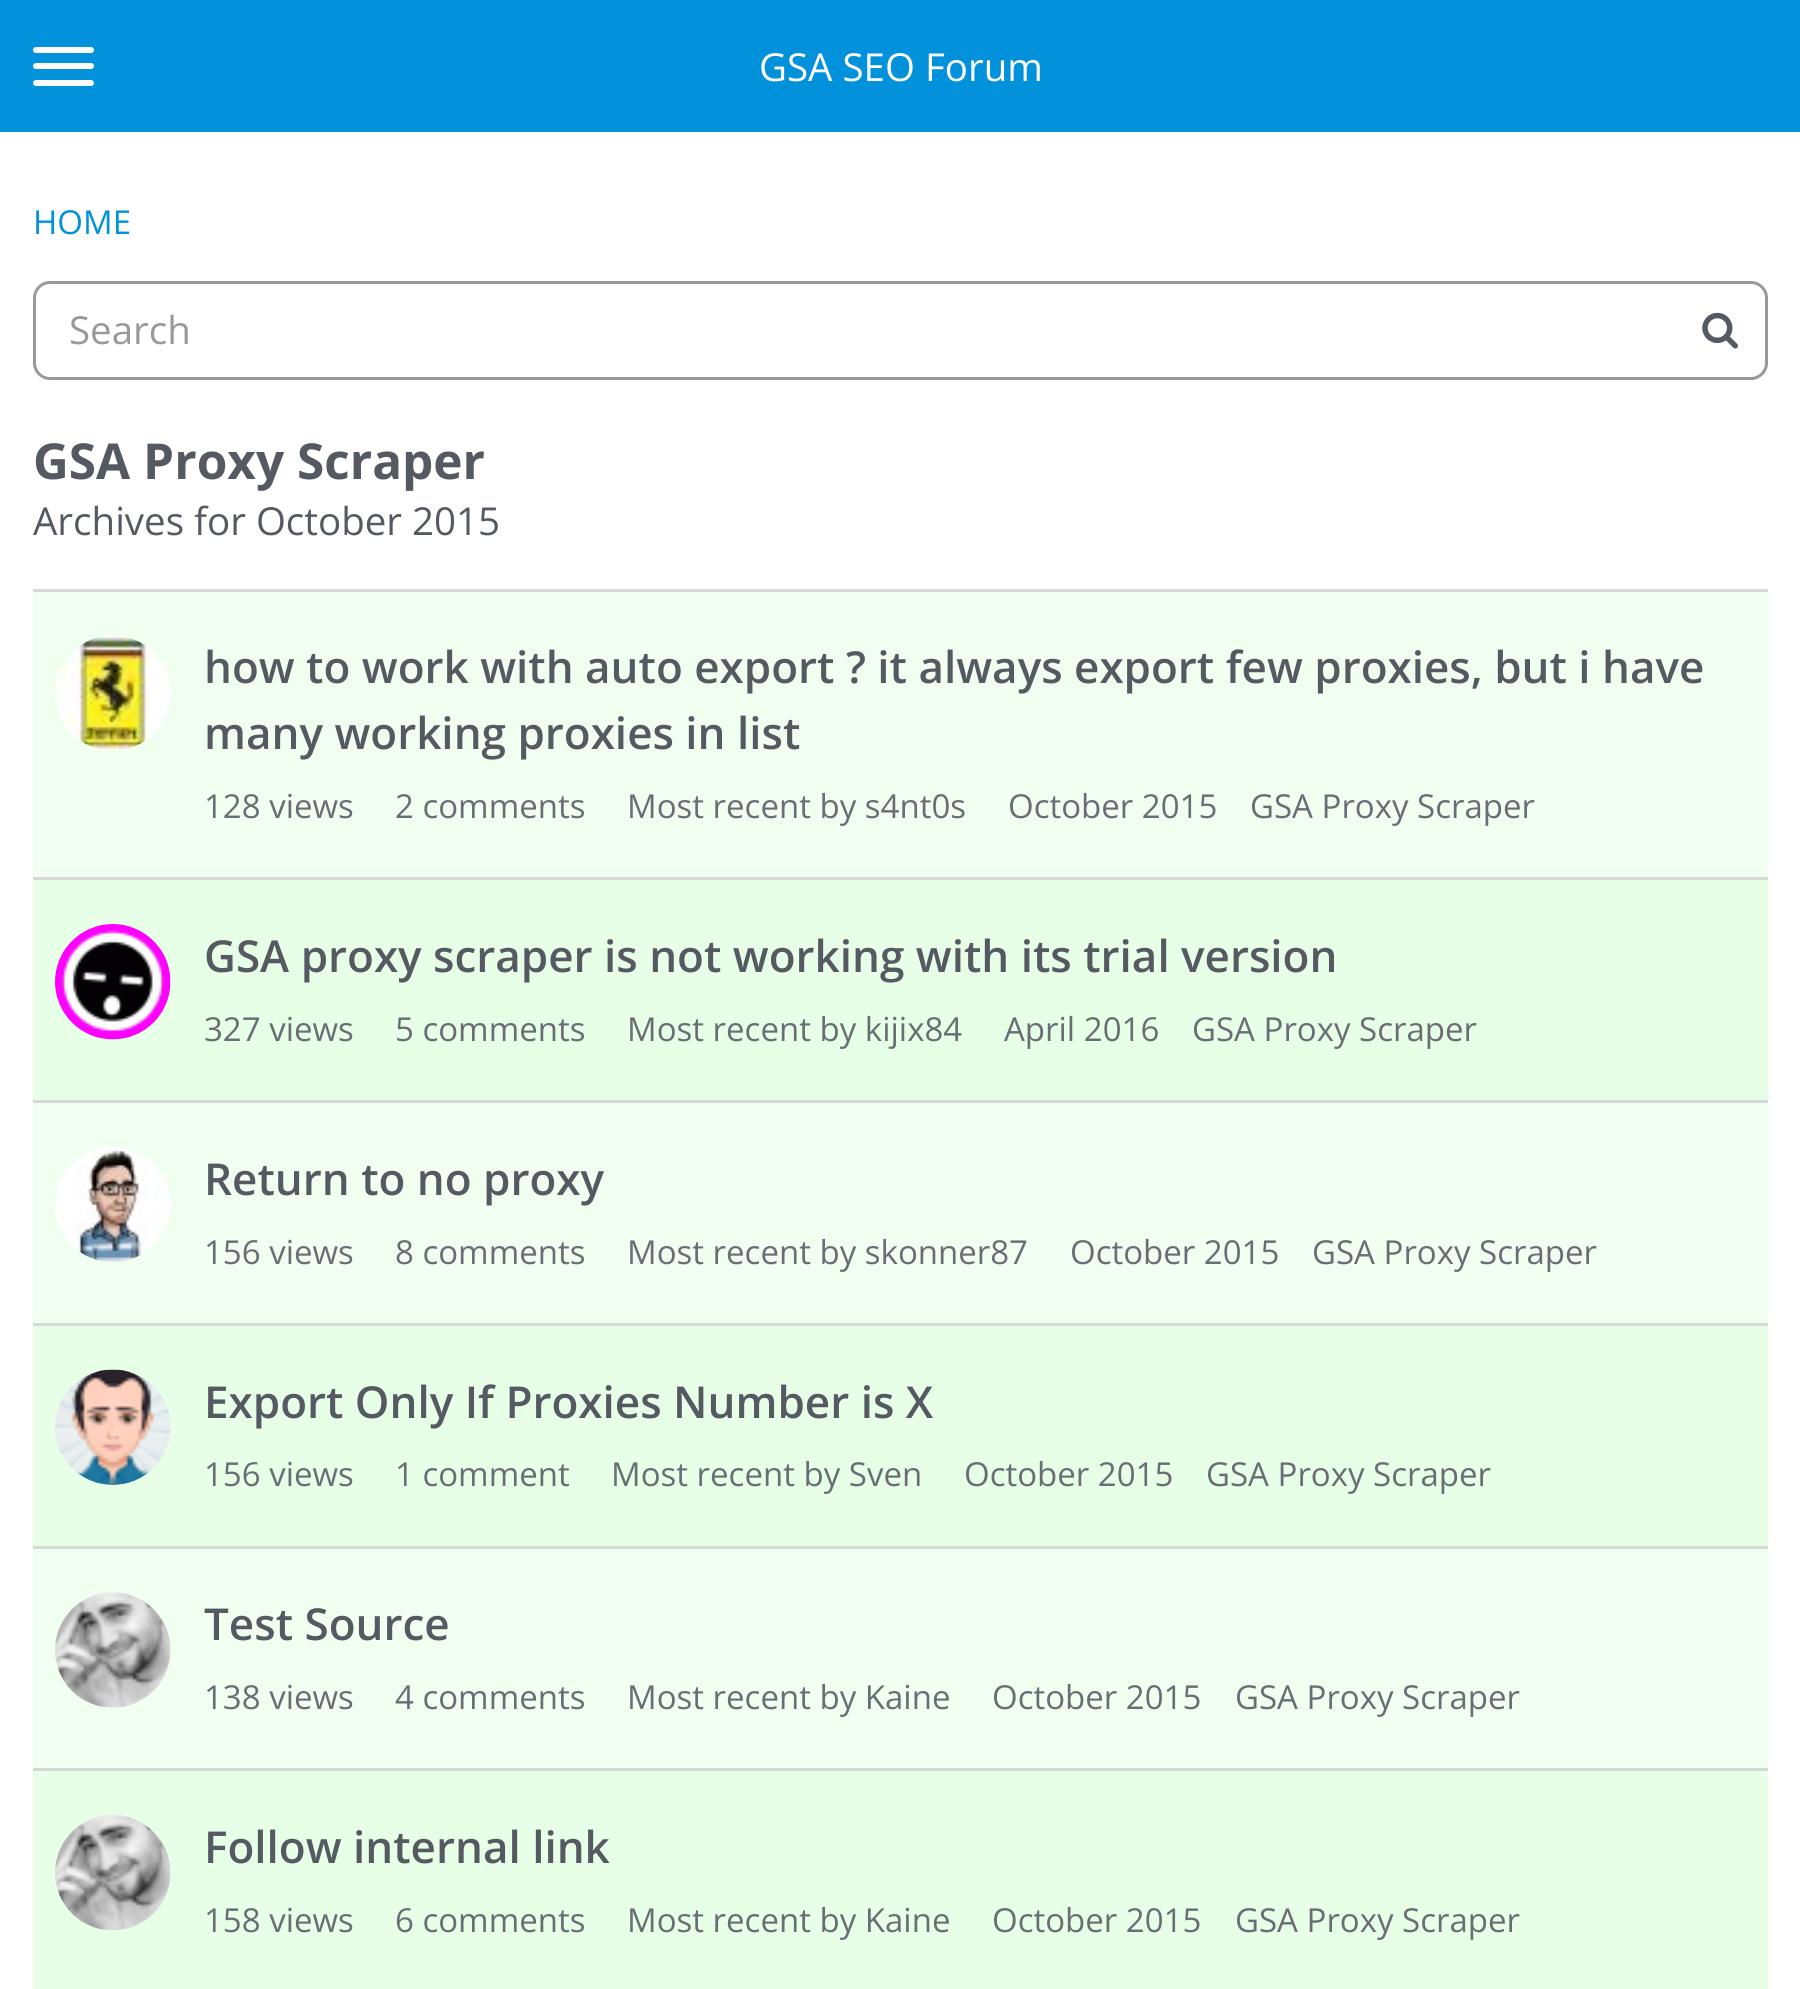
#include <cairo/cairo.h>
#include <math.h>
#include <stddef.h>


static void rounded_rect(cairo_t *cr, double x, double y, double w, double h, double r) {
  cairo_new_sub_path(cr);
  cairo_arc(cr, x + w - r, y + h - r, r, 0, M_PI / 2);
  cairo_arc(cr, x + r, y + h - r, r, M_PI / 2, M_PI);
  cairo_arc(cr, x + r, y + r, r, M_PI, 1.5 * M_PI);
  cairo_arc(cr, x + w - r, y + r, r, 1.5 * M_PI, 2 * M_PI);
  cairo_close_path(cr);
}

static void draw_image(cairo_t *cr, const char *path, double x, double y, double w, double h) {
  cairo_surface_t *image = cairo_image_surface_create_from_png(path);
  cairo_save(cr);
  cairo_set_source_surface(cr, image, x, y);
  cairo_rectangle(cr, x, y, w, h);
  cairo_fill(cr);
  cairo_restore(cr);
  cairo_surface_destroy(image);
}

static void draw(cairo_t *cr) {
  cairo_set_source_rgb(cr, 1, 1, 1);
  cairo_paint(cr);
  cairo_set_source_rgb(cr, 2 / 255.0, 145 / 255.0, 219 / 255.0);
  cairo_rectangle(cr, 0, 0, 1800, 132);
  cairo_fill(cr);
  cairo_set_source_rgb(cr, 1, 1, 1);
  rounded_rect(cr, 33, 63, 61, 6, 3);
  cairo_fill(cr);
  rounded_rect(cr, 33, 47, 61, 6, 3);
  cairo_fill(cr);
  rounded_rect(cr, 33, 80, 61, 6, 3);
  cairo_fill(cr);
  rounded_rect(cr, 34.5, 282.5, 1732, 96, 15.5);
  cairo_set_source_rgb(cr, 153 / 255.0, 153 / 255.0, 153 / 255.0);
  cairo_set_line_width(cr, 3);
  cairo_stroke(cr);
  draw_image(cr, "images/1.png", 1702, 312, 36, 37);
  cairo_set_source_rgb(cr, 241 / 255.0, 1, 241 / 255.0);
  cairo_rectangle(cr, 33, 592, 1735, 285);
  cairo_fill(cr);
  cairo_set_source_rgb(cr, 214 / 255.0, 215 / 255.0, 217 / 255.0);
  cairo_rectangle(cr, 33, 589, 1735, 3);
  cairo_fill(cr);
  draw_image(cr, "images/2.png", 55, 635, 115, 116);
  cairo_set_source_rgb(cr, 230 / 255.0, 1, 230 / 255.0);
  cairo_rectangle(cr, 33, 880, 1735, 220);
  cairo_fill(cr);
  cairo_set_source_rgb(cr, 214 / 255.0, 215 / 255.0, 217 / 255.0);
  cairo_rectangle(cr, 33, 877, 1735, 3);
  cairo_fill(cr);
  draw_image(cr, "images/3.png", 55, 924, 116, 116);
  cairo_set_source_rgb(cr, 241 / 255.0, 1, 241 / 255.0);
  cairo_rectangle(cr, 33, 1103, 1735, 220);
  cairo_fill(cr);
  cairo_set_source_rgb(cr, 214 / 255.0, 215 / 255.0, 217 / 255.0);
  cairo_rectangle(cr, 33, 1100, 1735, 3);
  cairo_fill(cr);
  draw_image(cr, "images/4.png", 55, 1147, 115, 115);
  cairo_set_source_rgb(cr, 230 / 255.0, 1, 230 / 255.0);
  cairo_rectangle(cr, 33, 1326, 1735, 220);
  cairo_fill(cr);
  cairo_set_source_rgb(cr, 214 / 255.0, 215 / 255.0, 217 / 255.0);
  cairo_rectangle(cr, 33, 1323, 1735, 3);
  cairo_fill(cr);
  draw_image(cr, "images/5.png", 55, 1369, 116, 116);
  cairo_set_source_rgb(cr, 241 / 255.0, 1, 241 / 255.0);
  cairo_rectangle(cr, 33, 1549, 1735, 219);
  cairo_fill(cr);
  cairo_set_source_rgb(cr, 214 / 255.0, 215 / 255.0, 217 / 255.0);
  cairo_rectangle(cr, 33, 1546, 1735, 3);
  cairo_fill(cr);
  draw_image(cr, "images/6.png", 55, 1592, 116, 116);
  cairo_set_source_rgb(cr, 230 / 255.0, 1, 230 / 255.0);
  cairo_rectangle(cr, 33, 1771, 1735, 218);
  cairo_fill(cr);
  cairo_set_source_rgb(cr, 214 / 255.0, 215 / 255.0, 217 / 255.0);
  cairo_rectangle(cr, 33, 1768, 1735, 3);
  cairo_fill(cr);
  draw_image(cr, "images/7.png", 55, 1815, 116, 116);
  cairo_select_font_face(cr, "Open Sans", CAIRO_FONT_SLANT_NORMAL, CAIRO_FONT_WEIGHT_NORMAL);
  cairo_set_font_size(cr, 38.5);
  cairo_set_source_rgb(cr, 1, 1, 1);
  cairo_move_to(cr, 759, 81);
  cairo_show_text(cr, "GSA SEO Forum");
  cairo_set_font_size(cr, 33);
  cairo_set_source_rgb(cr, 2 / 255.0, 145 / 255.0, 219 / 255.0);
  cairo_move_to(cr, 33, 234);
  cairo_show_text(cr, "HOME");
  cairo_set_font_size(cr, 38.5);
  cairo_set_source_rgb(cr, 153 / 255.0, 153 / 255.0, 153 / 255.0);
  cairo_move_to(cr, 69, 344);
  cairo_show_text(cr, "Search");
  cairo_select_font_face(cr, "Open Sans", CAIRO_FONT_SLANT_NORMAL, CAIRO_FONT_WEIGHT_BOLD);
  cairo_set_font_size(cr, 49.5);
  cairo_set_source_rgb(cr, 85 / 255.0, 90 / 255.0, 98 / 255.0);
  cairo_move_to(cr, 33, 479);
  cairo_show_text(cr, "GSA Proxy Scraper");
  cairo_select_font_face(cr, "Open Sans", CAIRO_FONT_SLANT_NORMAL, CAIRO_FONT_WEIGHT_NORMAL);
  cairo_set_font_size(cr, 38.5);
  cairo_move_to(cr, 33, 535);
  cairo_show_text(cr, "Archives for October 2015");
  cairo_select_font_face(cr, "Open Sans SemiBold", CAIRO_FONT_SLANT_NORMAL, CAIRO_FONT_WEIGHT_NORMAL);
  cairo_set_font_size(cr, 44);
  cairo_move_to(cr, 204, 683);
  cairo_show_text(cr, "how to work with auto export ? it always export few proxies, but i have");
  cairo_move_to(cr, 204, 749);
  cairo_show_text(cr, "many working proxies in list");
  cairo_select_font_face(cr, "Open Sans", CAIRO_FONT_SLANT_NORMAL, CAIRO_FONT_WEIGHT_NORMAL);
  cairo_set_font_size(cr, 33);
  cairo_set_source_rgb(cr, 105 / 255.0, 110 / 255.0, 117 / 255.0);
  cairo_move_to(cr, 204, 818);
  cairo_show_text(cr, "128 views");
  cairo_move_to(cr, 395, 818);
  cairo_show_text(cr, "2 comments");
  cairo_move_to(cr, 627, 818);
  cairo_show_text(cr, "Most recent by s4nt0s");
  cairo_move_to(cr, 1008, 818);
  cairo_show_text(cr, "October 2015");
  cairo_move_to(cr, 1250, 818);
  cairo_show_text(cr, "GSA Proxy Scraper");
  cairo_select_font_face(cr, "Open Sans SemiBold", CAIRO_FONT_SLANT_NORMAL, CAIRO_FONT_WEIGHT_NORMAL);
  cairo_set_font_size(cr, 44);
  cairo_set_source_rgb(cr, 85 / 255.0, 90 / 255.0, 98 / 255.0);
  cairo_move_to(cr, 204, 972);
  cairo_show_text(cr, "GSA proxy scraper is not working with its trial version");
  cairo_select_font_face(cr, "Open Sans", CAIRO_FONT_SLANT_NORMAL, CAIRO_FONT_WEIGHT_NORMAL);
  cairo_set_font_size(cr, 33);
  cairo_set_source_rgb(cr, 105 / 255.0, 110 / 255.0, 117 / 255.0);
  cairo_move_to(cr, 204, 1041);
  cairo_show_text(cr, "327 views");
  cairo_move_to(cr, 395, 1041);
  cairo_show_text(cr, "5 comments");
  cairo_move_to(cr, 627, 1041);
  cairo_show_text(cr, "Most recent by kijix84");
  cairo_move_to(cr, 1004, 1041);
  cairo_show_text(cr, "April 2016");
  cairo_move_to(cr, 1192, 1041);
  cairo_show_text(cr, "GSA Proxy Scraper");
  cairo_select_font_face(cr, "Open Sans SemiBold", CAIRO_FONT_SLANT_NORMAL, CAIRO_FONT_WEIGHT_NORMAL);
  cairo_set_font_size(cr, 44);
  cairo_set_source_rgb(cr, 85 / 255.0, 90 / 255.0, 98 / 255.0);
  cairo_move_to(cr, 204, 1195);
  cairo_show_text(cr, "Return to no proxy");
  cairo_select_font_face(cr, "Open Sans", CAIRO_FONT_SLANT_NORMAL, CAIRO_FONT_WEIGHT_NORMAL);
  cairo_set_font_size(cr, 33);
  cairo_set_source_rgb(cr, 105 / 255.0, 110 / 255.0, 117 / 255.0);
  cairo_move_to(cr, 204, 1264);
  cairo_show_text(cr, "156 views");
  cairo_move_to(cr, 395, 1264);
  cairo_show_text(cr, "8 comments");
  cairo_move_to(cr, 627, 1264);
  cairo_show_text(cr, "Most recent by skonner87");
  cairo_move_to(cr, 1070, 1264);
  cairo_show_text(cr, "October 2015");
  cairo_move_to(cr, 1312, 1264);
  cairo_show_text(cr, "GSA Proxy Scraper");
  cairo_select_font_face(cr, "Open Sans SemiBold", CAIRO_FONT_SLANT_NORMAL, CAIRO_FONT_WEIGHT_NORMAL);
  cairo_set_font_size(cr, 44);
  cairo_set_source_rgb(cr, 85 / 255.0, 90 / 255.0, 98 / 255.0);
  cairo_move_to(cr, 204, 1418);
  cairo_show_text(cr, "Export Only If Proxies Number is X");
  cairo_select_font_face(cr, "Open Sans", CAIRO_FONT_SLANT_NORMAL, CAIRO_FONT_WEIGHT_NORMAL);
  cairo_set_font_size(cr, 33);
  cairo_set_source_rgb(cr, 105 / 255.0, 110 / 255.0, 117 / 255.0);
  cairo_move_to(cr, 204, 1486);
  cairo_show_text(cr, "156 views");
  cairo_move_to(cr, 395, 1486);
  cairo_show_text(cr, "1 comment");
  cairo_move_to(cr, 611, 1486);
  cairo_show_text(cr, "Most recent by Sven");
  cairo_move_to(cr, 964, 1486);
  cairo_show_text(cr, "October 2015");
  cairo_move_to(cr, 1206, 1486);
  cairo_show_text(cr, "GSA Proxy Scraper");
  cairo_select_font_face(cr, "Open Sans SemiBold", CAIRO_FONT_SLANT_NORMAL, CAIRO_FONT_WEIGHT_NORMAL);
  cairo_set_font_size(cr, 44);
  cairo_set_source_rgb(cr, 85 / 255.0, 90 / 255.0, 98 / 255.0);
  cairo_move_to(cr, 204, 1640);
  cairo_show_text(cr, "Test Source");
  cairo_select_font_face(cr, "Open Sans", CAIRO_FONT_SLANT_NORMAL, CAIRO_FONT_WEIGHT_NORMAL);
  cairo_set_font_size(cr, 33);
  cairo_set_source_rgb(cr, 105 / 255.0, 110 / 255.0, 117 / 255.0);
  cairo_move_to(cr, 204, 1709);
  cairo_show_text(cr, "138 views");
  cairo_move_to(cr, 395, 1709);
  cairo_show_text(cr, "4 comments");
  cairo_move_to(cr, 627, 1709);
  cairo_show_text(cr, "Most recent by Kaine");
  cairo_move_to(cr, 992, 1709);
  cairo_show_text(cr, "October 2015");
  cairo_move_to(cr, 1235, 1709);
  cairo_show_text(cr, "GSA Proxy Scraper");
  cairo_select_font_face(cr, "Open Sans SemiBold", CAIRO_FONT_SLANT_NORMAL, CAIRO_FONT_WEIGHT_NORMAL);
  cairo_set_font_size(cr, 44);
  cairo_set_source_rgb(cr, 85 / 255.0, 90 / 255.0, 98 / 255.0);
  cairo_move_to(cr, 204, 1863);
  cairo_show_text(cr, "Follow internal link");
  cairo_select_font_face(cr, "Open Sans", CAIRO_FONT_SLANT_NORMAL, CAIRO_FONT_WEIGHT_NORMAL);
  cairo_set_font_size(cr, 33);
  cairo_set_source_rgb(cr, 105 / 255.0, 110 / 255.0, 117 / 255.0);
  cairo_move_to(cr, 204, 1932);
  cairo_show_text(cr, "158 views");
  cairo_move_to(cr, 395, 1932);
  cairo_show_text(cr, "6 comments");
  cairo_move_to(cr, 627, 1932);
  cairo_show_text(cr, "Most recent by Kaine");
  cairo_move_to(cr, 992, 1932);
  cairo_show_text(cr, "October 2015");
  cairo_move_to(cr, 1235, 1932);
  cairo_show_text(cr, "GSA Proxy Scraper");
}

int main(void) {
  cairo_surface_t *surface = cairo_image_surface_create(CAIRO_FORMAT_RGB24, 1800, 1989);
  cairo_t *cr = cairo_create(surface);
  cairo_font_options_t *options = cairo_font_options_create();
  cairo_font_options_set_hint_metrics(options, CAIRO_HINT_METRICS_OFF);
  cairo_font_options_set_hint_style(options, CAIRO_HINT_STYLE_NONE);
  cairo_set_font_options(cr, options);
  cairo_set_miter_limit(cr, 4);
  draw(cr);
  cairo_surface_write_to_png(surface, "out.png");
  cairo_font_options_destroy(options);
  cairo_destroy(cr);
  cairo_surface_destroy(surface);
  return 0;
}
